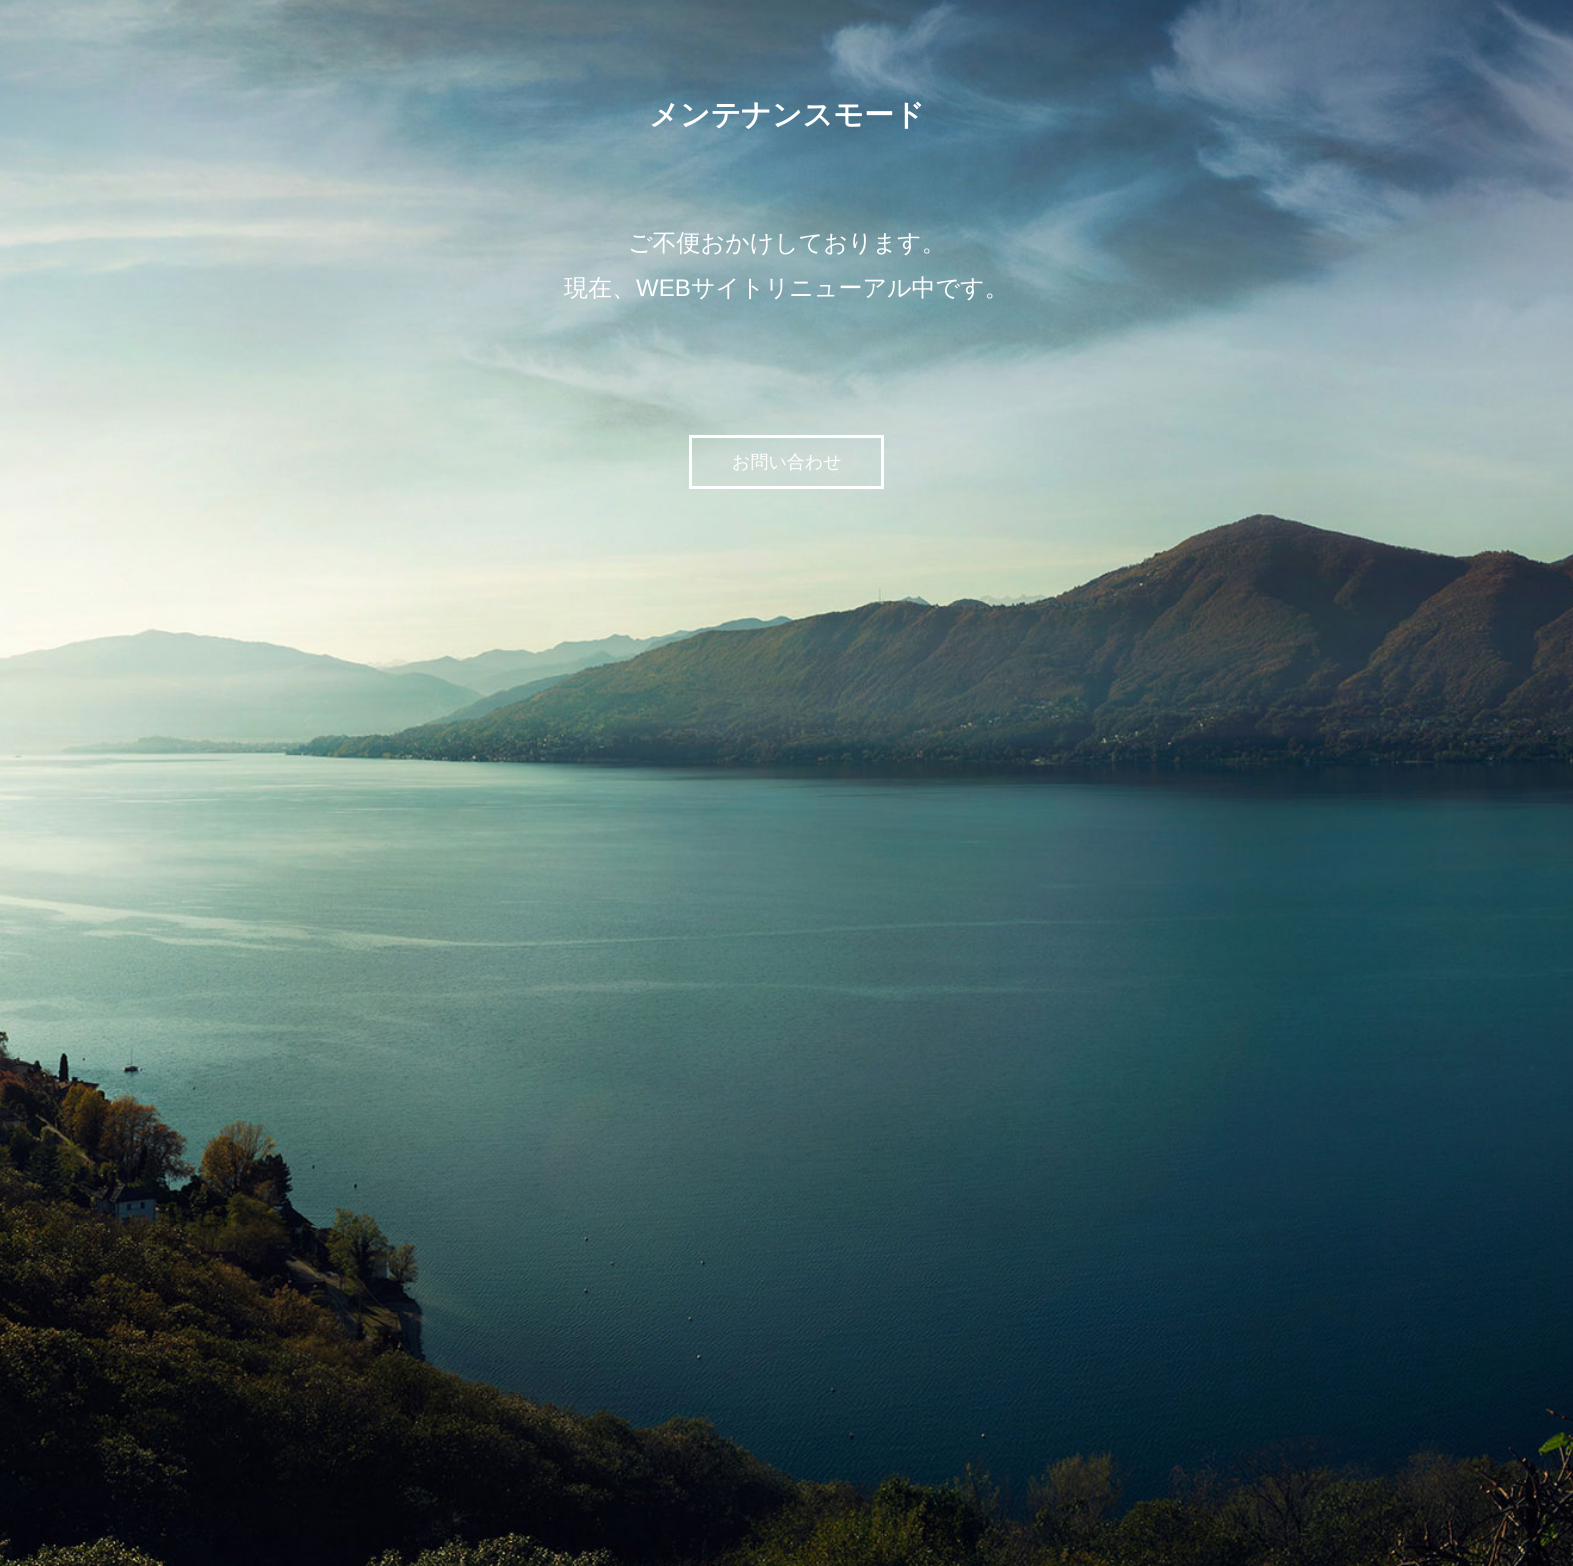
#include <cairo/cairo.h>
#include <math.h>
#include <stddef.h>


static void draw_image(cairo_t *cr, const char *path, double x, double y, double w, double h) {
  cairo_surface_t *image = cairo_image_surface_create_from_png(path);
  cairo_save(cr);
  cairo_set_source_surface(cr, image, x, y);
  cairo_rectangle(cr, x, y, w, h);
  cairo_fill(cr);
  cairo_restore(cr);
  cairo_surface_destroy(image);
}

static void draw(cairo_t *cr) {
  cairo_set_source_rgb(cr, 1, 1, 1);
  cairo_paint(cr);
  draw_image(cr, "images/1.png", 0, 0, 1573, 1566);
  cairo_rectangle(cr, 690.5, 436.5, 192, 51);
  cairo_set_source_rgb(cr, 1, 1, 1);
  cairo_set_line_width(cr, 3);
  cairo_stroke(cr);
  cairo_select_font_face(cr, "WenQuanYi Zen Hei", CAIRO_FONT_SLANT_NORMAL, CAIRO_FONT_WEIGHT_BOLD);
  cairo_set_font_size(cr, 30);
  cairo_move_to(cr, 649, 125);
  cairo_show_text(cr, "メンテナンスモード");
  cairo_select_font_face(cr, "WenQuanYi Zen Hei Medium", CAIRO_FONT_SLANT_NORMAL, CAIRO_FONT_WEIGHT_NORMAL);
  cairo_set_font_size(cr, 24);
  cairo_move_to(cr, 628, 251);
  cairo_show_text(cr, "ご不便おかけしております。");
  cairo_move_to(cr, 564, 296);
  cairo_show_text(cr, "現在、");
  cairo_select_font_face(cr, "Liberation Sans", CAIRO_FONT_SLANT_NORMAL, CAIRO_FONT_WEIGHT_NORMAL);
  cairo_move_to(cr, 636, 296);
  cairo_show_text(cr, "WEB");
  cairo_select_font_face(cr, "WenQuanYi Zen Hei Medium", CAIRO_FONT_SLANT_NORMAL, CAIRO_FONT_WEIGHT_NORMAL);
  cairo_move_to(cr, 691, 296);
  cairo_show_text(cr, "サイトリニューアル中です。");
  cairo_set_font_size(cr, 18);
  cairo_move_to(cr, 732, 468);
  cairo_show_text(cr, "お問い合わせ");
}

int main(void) {
  cairo_surface_t *surface = cairo_image_surface_create(CAIRO_FORMAT_RGB24, 1573, 1566);
  cairo_t *cr = cairo_create(surface);
  cairo_font_options_t *options = cairo_font_options_create();
  cairo_font_options_set_hint_metrics(options, CAIRO_HINT_METRICS_OFF);
  cairo_font_options_set_hint_style(options, CAIRO_HINT_STYLE_NONE);
  cairo_set_font_options(cr, options);
  cairo_set_miter_limit(cr, 4);
  draw(cr);
  cairo_surface_write_to_png(surface, "out.png");
  cairo_font_options_destroy(options);
  cairo_destroy(cr);
  cairo_surface_destroy(surface);
  return 0;
}
